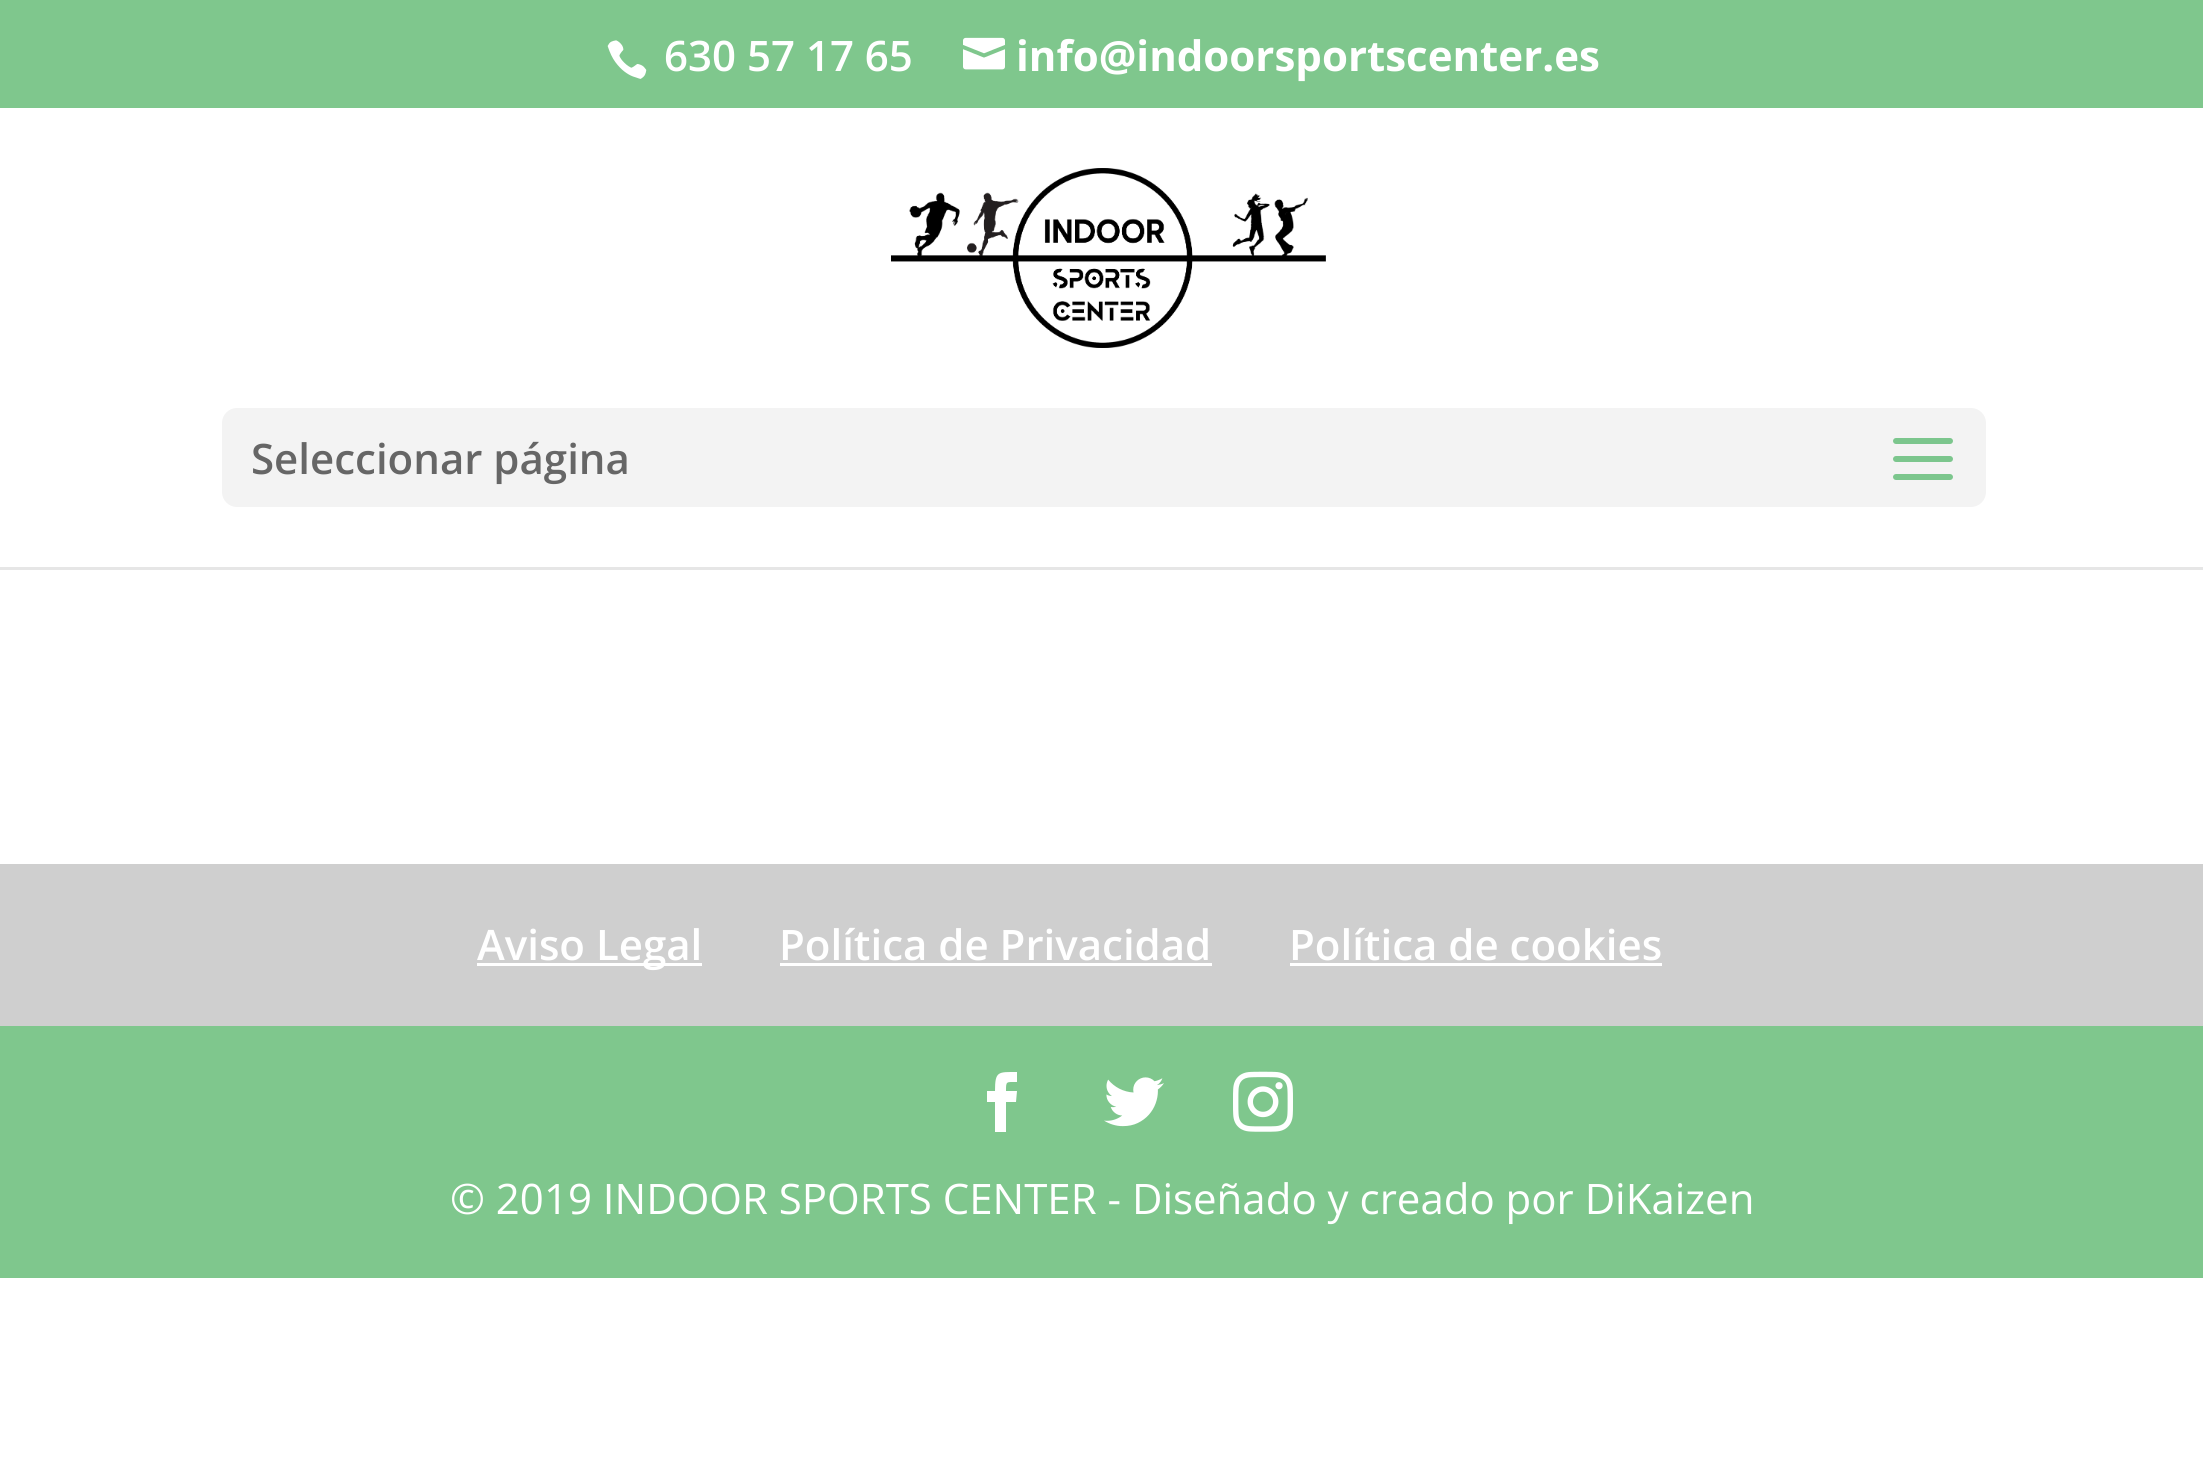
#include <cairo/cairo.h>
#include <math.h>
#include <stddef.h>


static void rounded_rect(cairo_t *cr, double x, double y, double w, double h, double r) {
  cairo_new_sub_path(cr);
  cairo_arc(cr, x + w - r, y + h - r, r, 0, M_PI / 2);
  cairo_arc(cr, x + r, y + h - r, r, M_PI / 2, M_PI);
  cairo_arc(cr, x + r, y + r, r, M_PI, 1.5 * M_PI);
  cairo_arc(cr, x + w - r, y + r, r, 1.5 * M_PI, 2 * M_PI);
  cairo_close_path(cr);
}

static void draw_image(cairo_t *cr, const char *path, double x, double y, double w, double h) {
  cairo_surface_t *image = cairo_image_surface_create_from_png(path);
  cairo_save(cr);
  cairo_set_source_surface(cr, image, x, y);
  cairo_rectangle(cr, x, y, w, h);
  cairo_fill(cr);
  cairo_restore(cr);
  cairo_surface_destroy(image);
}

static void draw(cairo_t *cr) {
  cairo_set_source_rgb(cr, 1, 1, 1);
  cairo_paint(cr);
  cairo_set_source_rgb(cr, 127 / 255.0, 199 / 255.0, 141 / 255.0);
  cairo_rectangle(cr, 0, 0, 2203, 108);
  cairo_fill(cr);
  draw_image(cr, "images/1.png", 607, 40, 40, 39);
  draw_image(cr, "images/2.png", 963, 37, 42, 33);
  cairo_set_source_rgb(cr, 230 / 255.0, 230 / 255.0, 230 / 255.0);
  cairo_rectangle(cr, 0, 567, 2203, 3);
  cairo_fill(cr);
  draw_image(cr, "images/3.png", 891, 168, 435, 180);
  cairo_set_source_rgb(cr, 243 / 255.0, 243 / 255.0, 243 / 255.0);
  rounded_rect(cr, 222, 408, 1764, 99, 15);
  cairo_fill(cr);
  draw_image(cr, "images/4.png", 1893, 438, 60, 42);
  cairo_set_source_rgb(cr, 207 / 255.0, 207 / 255.0, 207 / 255.0);
  cairo_rectangle(cr, 0, 864, 2203, 162);
  cairo_fill(cr);
  cairo_set_source_rgb(cr, 1, 1, 1);
  cairo_rectangle(cr, 477, 963, 225, 3);
  cairo_fill(cr);
  cairo_rectangle(cr, 780, 963, 432, 3);
  cairo_fill(cr);
  cairo_rectangle(cr, 1290, 963, 372, 3);
  cairo_fill(cr);
  cairo_set_source_rgb(cr, 127 / 255.0, 199 / 255.0, 141 / 255.0);
  cairo_rectangle(cr, 0, 1026, 2203, 252);
  cairo_fill(cr);
  cairo_set_source_rgb(cr, 1, 1, 1);
  cairo_new_path(cr);
  cairo_move_to(cr, 995, 1132);
  cairo_line_to(cr, 1006, 1132);
  cairo_line_to(cr, 1006, 1102);
  cairo_line_to(cr, 1016, 1102);
  cairo_line_to(cr, 1017, 1091);
  cairo_line_to(cr, 1006, 1091);
  cairo_curve_to(cr, 1006, 1081, 1006, 1082, 1017, 1082);
  cairo_line_to(cr, 1017, 1072);
  cairo_curve_to(cr, 998, 1072, 995, 1071, 995, 1091);
  cairo_line_to(cr, 987, 1091);
  cairo_line_to(cr, 987, 1102);
  cairo_line_to(cr, 995, 1102);
  cairo_close_path(cr);
  cairo_fill(cr);
  draw_image(cr, "images/5.png", 1104, 1077, 60, 50);
  draw_image(cr, "images/6.png", 1233, 1071, 60, 61);
  cairo_select_font_face(cr, "Open Sans SemiBold", CAIRO_FONT_SLANT_NORMAL, CAIRO_FONT_WEIGHT_NORMAL);
  cairo_set_font_size(cr, 42);
  cairo_move_to(cr, 664, 71);
  cairo_show_text(cr, "630 57 17 65");
  cairo_select_font_face(cr, "Open Sans", CAIRO_FONT_SLANT_NORMAL, CAIRO_FONT_WEIGHT_BOLD);
  cairo_move_to(cr, 1016, 71);
  cairo_show_text(cr, "info@indoorsportscenter.es");
  cairo_select_font_face(cr, "Open Sans SemiBold", CAIRO_FONT_SLANT_NORMAL, CAIRO_FONT_WEIGHT_NORMAL);
  cairo_set_source_rgb(cr, 102 / 255.0, 102 / 255.0, 102 / 255.0);
  cairo_move_to(cr, 251, 474);
  cairo_show_text(cr, "Seleccionar página");
  cairo_set_source_rgb(cr, 1, 1, 1);
  cairo_move_to(cr, 477, 960);
  cairo_show_text(cr, "Aviso Legal");
  cairo_move_to(cr, 779, 960);
  cairo_show_text(cr, "Política de Privacidad");
  cairo_move_to(cr, 1289, 960);
  cairo_show_text(cr, "Política de cookies");
  cairo_select_font_face(cr, "Open Sans", CAIRO_FONT_SLANT_NORMAL, CAIRO_FONT_WEIGHT_NORMAL);
  cairo_move_to(cr, 450, 1214);
  cairo_show_text(cr, "© 2019 INDOOR SPORTS CENTER - Diseñado y creado por DiKaizen");
}

int main(void) {
  cairo_surface_t *surface = cairo_image_surface_create(CAIRO_FORMAT_RGB24, 2203, 1478);
  cairo_t *cr = cairo_create(surface);
  cairo_font_options_t *options = cairo_font_options_create();
  cairo_font_options_set_hint_metrics(options, CAIRO_HINT_METRICS_OFF);
  cairo_font_options_set_hint_style(options, CAIRO_HINT_STYLE_NONE);
  cairo_set_font_options(cr, options);
  cairo_set_miter_limit(cr, 4);
  draw(cr);
  cairo_surface_write_to_png(surface, "out.png");
  cairo_font_options_destroy(options);
  cairo_destroy(cr);
  cairo_surface_destroy(surface);
  return 0;
}
